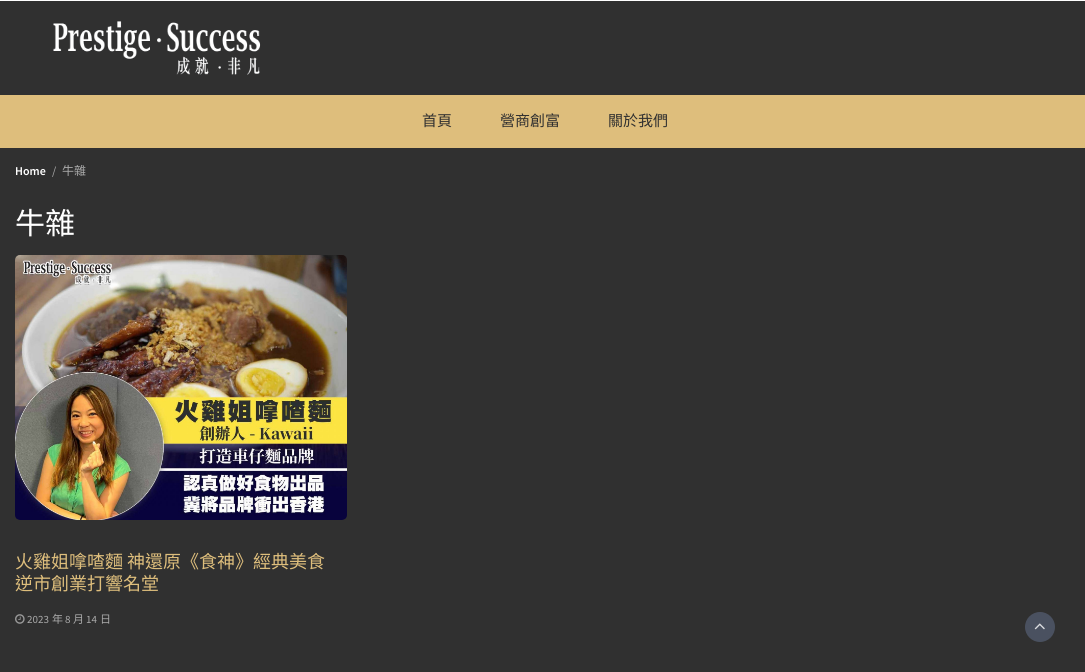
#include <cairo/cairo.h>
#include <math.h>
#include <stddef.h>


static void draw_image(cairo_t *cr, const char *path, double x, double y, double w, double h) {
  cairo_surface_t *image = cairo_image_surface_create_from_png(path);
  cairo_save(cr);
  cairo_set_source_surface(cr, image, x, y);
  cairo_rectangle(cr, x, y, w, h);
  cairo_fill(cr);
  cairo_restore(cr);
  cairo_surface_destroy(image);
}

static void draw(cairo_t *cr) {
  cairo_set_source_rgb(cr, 48 / 255.0, 48 / 255.0, 48 / 255.0);
  cairo_paint(cr);
  cairo_set_source_rgb(cr, 1, 1, 1);
  cairo_rectangle(cr, 0, 0, 1085, 1);
  cairo_fill(cr);
  draw_image(cr, "images/1.png", 53, 21, 208, 54);
  cairo_set_source_rgb(cr, 222 / 255.0, 190 / 255.0, 124 / 255.0);
  cairo_rectangle(cr, 0, 95, 1085, 53);
  cairo_fill(cr);
  draw_image(cr, "images/2.png", 15, 255, 332, 265);
  draw_image(cr, "images/3.png", 15, 614, 10, 10);
  cairo_set_source_rgb(cr, 74 / 255.0, 81 / 255.0, 96 / 255.0);
  cairo_arc(cr, 1040, 627, 15, 0, 2 * M_PI);
  cairo_fill(cr);
  draw_image(cr, "images/4.png", 1034, 623, 11, 7);
  cairo_select_font_face(cr, "Noto Sans CJK TC", CAIRO_FONT_SLANT_NORMAL, CAIRO_FONT_WEIGHT_NORMAL);
  cairo_set_font_size(cr, 15);
  cairo_set_source_rgb(cr, 48 / 255.0, 48 / 255.0, 48 / 255.0);
  cairo_move_to(cr, 422, 126);
  cairo_show_text(cr, "首頁");
  cairo_move_to(cr, 500, 126);
  cairo_show_text(cr, "營商創富");
  cairo_move_to(cr, 608, 126);
  cairo_show_text(cr, "關於我們");
  cairo_select_font_face(cr, "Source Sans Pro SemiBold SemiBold", CAIRO_FONT_SLANT_NORMAL, CAIRO_FONT_WEIGHT_NORMAL);
  cairo_set_font_size(cr, 12);
  cairo_set_source_rgb(cr, 1, 1, 1);
  cairo_move_to(cr, 15, 175);
  cairo_show_text(cr, "Home");
  cairo_select_font_face(cr, "Source Sans Pro", CAIRO_FONT_SLANT_NORMAL, CAIRO_FONT_WEIGHT_NORMAL);
  cairo_set_source_rgb(cr, 170 / 255.0, 170 / 255.0, 170 / 255.0);
  cairo_move_to(cr, 52, 175);
  cairo_show_text(cr, "/");
  cairo_select_font_face(cr, "Noto Sans CJK TC", CAIRO_FONT_SLANT_NORMAL, CAIRO_FONT_WEIGHT_NORMAL);
  cairo_move_to(cr, 62, 175);
  cairo_show_text(cr, "牛雜");
  cairo_set_font_size(cr, 30);
  cairo_set_source_rgb(cr, 1, 1, 1);
  cairo_move_to(cr, 15, 234);
  cairo_show_text(cr, "牛雜");
  cairo_set_font_size(cr, 18);
  cairo_set_source_rgb(cr, 222 / 255.0, 190 / 255.0, 124 / 255.0);
  cairo_move_to(cr, 15, 568);
  cairo_show_text(cr, "火雞姐嗱喳麵 神還原《食神》經典美食");
  cairo_move_to(cr, 15, 590);
  cairo_show_text(cr, "逆市創業打響名堂");
  cairo_select_font_face(cr, "Source Sans Pro", CAIRO_FONT_SLANT_NORMAL, CAIRO_FONT_WEIGHT_NORMAL);
  cairo_set_font_size(cr, 11);
  cairo_set_source_rgb(cr, 170 / 255.0, 170 / 255.0, 170 / 255.0);
  cairo_move_to(cr, 27, 623);
  cairo_show_text(cr, "2023");
  cairo_select_font_face(cr, "Noto Sans CJK TC", CAIRO_FONT_SLANT_NORMAL, CAIRO_FONT_WEIGHT_NORMAL);
  cairo_move_to(cr, 52, 623);
  cairo_show_text(cr, "年");
  cairo_select_font_face(cr, "Source Sans Pro", CAIRO_FONT_SLANT_NORMAL, CAIRO_FONT_WEIGHT_NORMAL);
  cairo_move_to(cr, 65, 623);
  cairo_show_text(cr, "8");
  cairo_select_font_face(cr, "Noto Sans CJK TC", CAIRO_FONT_SLANT_NORMAL, CAIRO_FONT_WEIGHT_NORMAL);
  cairo_move_to(cr, 73, 623);
  cairo_show_text(cr, "月");
  cairo_select_font_face(cr, "Source Sans Pro", CAIRO_FONT_SLANT_NORMAL, CAIRO_FONT_WEIGHT_NORMAL);
  cairo_move_to(cr, 86, 623);
  cairo_show_text(cr, "14");
  cairo_select_font_face(cr, "Noto Sans CJK TC", CAIRO_FONT_SLANT_NORMAL, CAIRO_FONT_WEIGHT_NORMAL);
  cairo_move_to(cr, 100, 623);
  cairo_show_text(cr, "日");
}

int main(void) {
  cairo_surface_t *surface = cairo_image_surface_create(CAIRO_FORMAT_RGB24, 1085, 672);
  cairo_t *cr = cairo_create(surface);
  cairo_font_options_t *options = cairo_font_options_create();
  cairo_font_options_set_hint_metrics(options, CAIRO_HINT_METRICS_OFF);
  cairo_font_options_set_hint_style(options, CAIRO_HINT_STYLE_NONE);
  cairo_set_font_options(cr, options);
  cairo_set_miter_limit(cr, 4);
  draw(cr);
  cairo_surface_write_to_png(surface, "out.png");
  cairo_font_options_destroy(options);
  cairo_destroy(cr);
  cairo_surface_destroy(surface);
  return 0;
}
